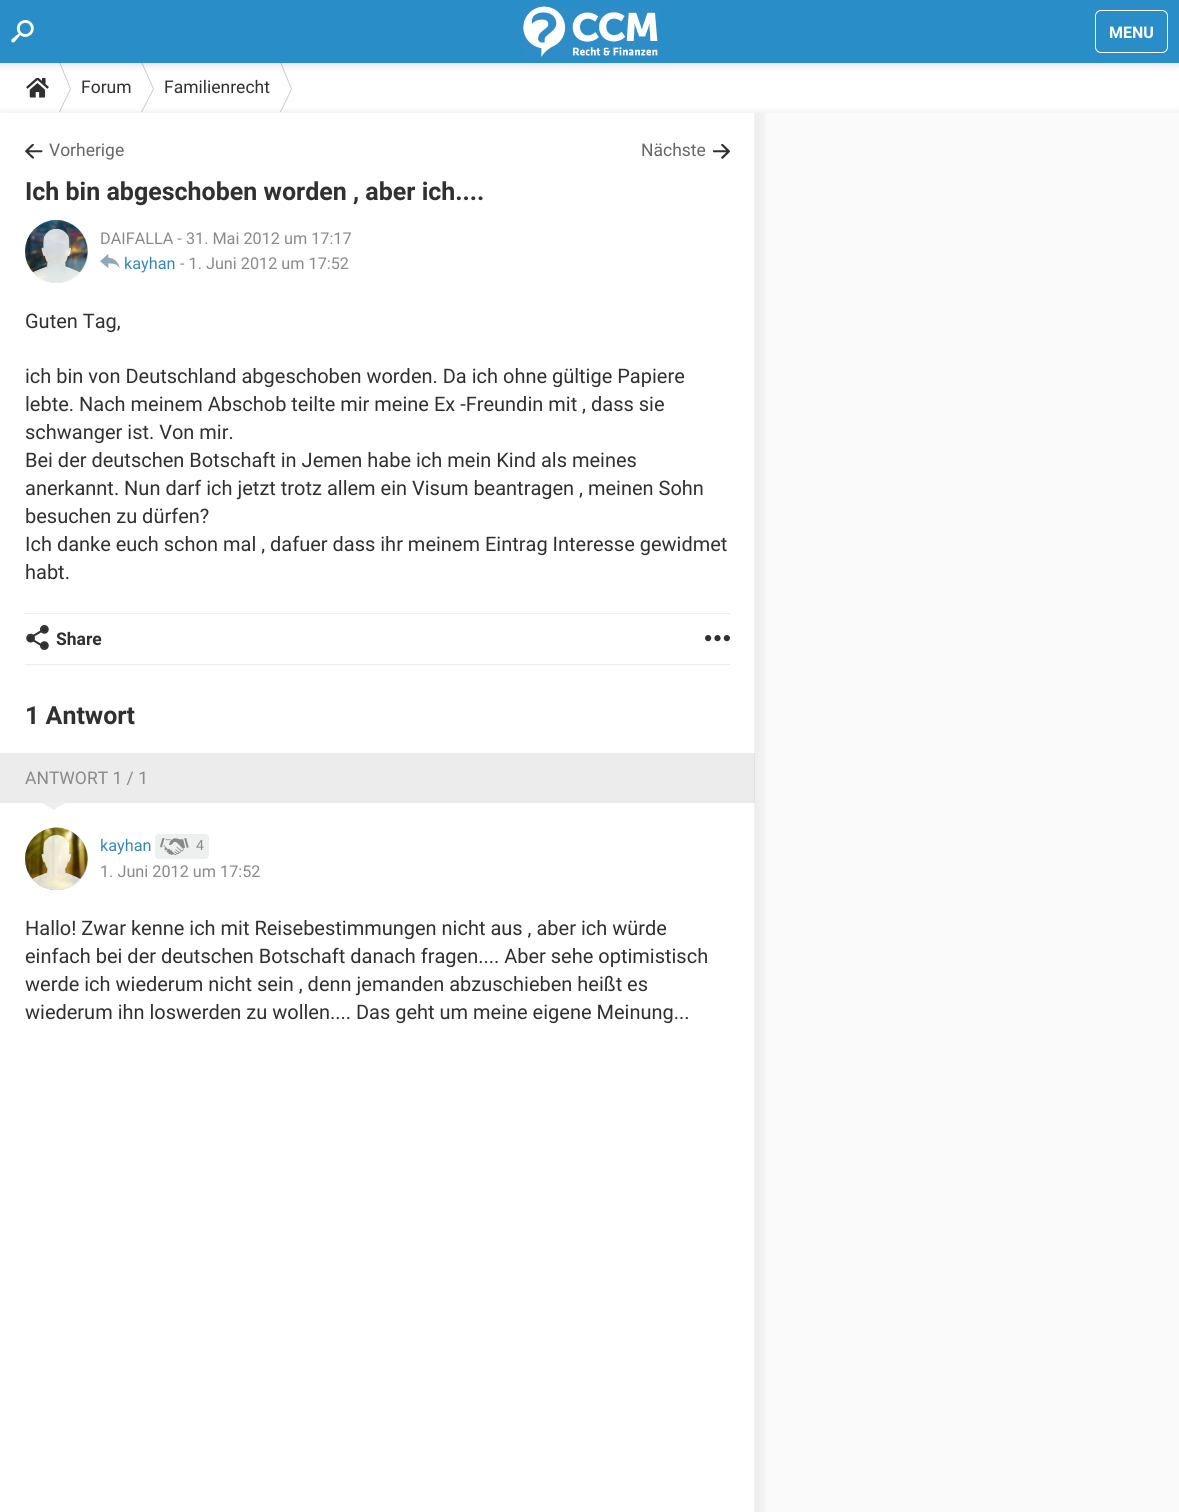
#include <cairo/cairo.h>
#include <math.h>
#include <stddef.h>


static void rounded_rect(cairo_t *cr, double x, double y, double w, double h, double r) {
  cairo_new_sub_path(cr);
  cairo_arc(cr, x + w - r, y + h - r, r, 0, M_PI / 2);
  cairo_arc(cr, x + r, y + h - r, r, M_PI / 2, M_PI);
  cairo_arc(cr, x + r, y + r, r, M_PI, 1.5 * M_PI);
  cairo_arc(cr, x + w - r, y + r, r, 1.5 * M_PI, 2 * M_PI);
  cairo_close_path(cr);
}

static void draw_shadow(cairo_t *cr, double x, double y, double w, double h, double r, double blur, double alpha) {
  cairo_push_group_with_content(cr, CAIRO_CONTENT_ALPHA);
  cairo_set_operator(cr, CAIRO_OPERATOR_SOURCE);
  for (int i = 15; i >= -15 && fmin(w, h) + blur * i / 3 > 0; i -= 2) {
    double e = blur * i / 6;
    cairo_set_source_rgba(cr, 0, 0, 0, alpha * erfc((i - 1) / 8.5) / 2);
    rounded_rect(cr, x - e, y - e, w + 2 * e, h + 2 * e, fmax(0, fmin(r + e + blur * .6, fmin(w, h) / 2 + e)));
    cairo_fill(cr);
  }
  cairo_pattern_t *soft = cairo_pop_group(cr);
  cairo_mask(cr, soft);
  cairo_pattern_destroy(soft);
}

static void draw_image(cairo_t *cr, const char *path, double x, double y, double w, double h) {
  cairo_surface_t *image = cairo_image_surface_create_from_png(path);
  cairo_save(cr);
  cairo_set_source_surface(cr, image, x, y);
  cairo_rectangle(cr, x, y, w, h);
  cairo_fill(cr);
  cairo_restore(cr);
  cairo_surface_destroy(image);
}

static void draw(cairo_t *cr) {
  cairo_pattern_t *gradient;
  cairo_set_source_rgb(cr, 1, 1, 1);
  cairo_paint(cr);
  draw_image(cr, "images/3.png", 26, 78, 23, 20);
  cairo_set_source_rgb(cr, 201 / 255.0, 201 / 255.0, 201 / 255.0);
  cairo_set_fill_rule(cr, CAIRO_FILL_RULE_EVEN_ODD);
  cairo_new_path(cr);
  cairo_move_to(cr, 59, 62);
  cairo_line_to(cr, 60, 62);
  cairo_line_to(cr, 71, 89);
  cairo_line_to(cr, 60, 112);
  cairo_line_to(cr, 59, 112);
  cairo_line_to(cr, 70, 89);
  cairo_close_path(cr);
  cairo_fill(cr);
  cairo_new_path(cr);
  cairo_move_to(cr, 141, 62);
  cairo_line_to(cr, 142, 62);
  cairo_line_to(cr, 154, 89);
  cairo_line_to(cr, 142, 112);
  cairo_line_to(cr, 141, 112);
  cairo_line_to(cr, 153, 89);
  cairo_close_path(cr);
  cairo_fill(cr);
  cairo_new_path(cr);
  cairo_move_to(cr, 280, 62);
  cairo_line_to(cr, 281, 62);
  cairo_line_to(cr, 292, 89);
  cairo_line_to(cr, 281, 112);
  cairo_line_to(cr, 280, 112);
  cairo_line_to(cr, 291, 89);
  cairo_close_path(cr);
  cairo_fill(cr);
  cairo_set_source_rgb(cr, 0, 0, 0);
  draw_shadow(cr, 0, 0, 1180, 63, 0, 5, 0.2);
  cairo_set_source_rgb(cr, 41 / 255.0, 142 / 255.0, 200 / 255.0);
  cairo_rectangle(cr, 0, 0, 1179, 63);
  cairo_fill(cr);
  draw_image(cr, "images/1.png", 11, 20, 23, 23);
  draw_image(cr, "images/2.png", 523, 6, 135, 51);
  rounded_rect(cr, 1095.5, 10.5, 72, 42, 5.5);
  cairo_set_source_rgb(cr, 1, 1, 1);
  cairo_set_line_width(cr, 1);
  cairo_stroke(cr);
  cairo_set_source_rgb(cr, 0, 0, 0);
  draw_shadow(cr, 0, 113, 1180, 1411, 0, 4, 0.1);
  cairo_set_source_rgb(cr, 1, 1, 1);
  cairo_rectangle(cr, 0, 113, 755, 1399);
  cairo_fill(cr);
  draw_image(cr, "images/4.png", 25, 144, 18, 15);
  draw_image(cr, "images/5.png", 713, 144, 17, 15);
  cairo_set_source_rgb(cr, 176 / 255.0, 190 / 255.0, 203 / 255.0);
  cairo_arc(cr, 56.5, 251.5, 31.5, 0, 2 * M_PI);
  cairo_fill(cr);
  draw_image(cr, "images/6.png", 24, 220, 64, 63);
  draw_image(cr, "images/7.png", 33, 229, 47, 54);
  draw_image(cr, "images/8.png", 100, 254, 20, 15);
  cairo_set_source_rgb(cr, 236 / 255.0, 236 / 255.0, 236 / 255.0);
  cairo_rectangle(cr, 25, 613, 705, 1);
  cairo_fill(cr);
  cairo_rectangle(cr, 25, 664, 705, 1);
  cairo_fill(cr);
  draw_image(cr, "images/9.png", 26, 625, 23, 25);
  draw_image(cr, "images/10.png", 705, 635, 25, 7);
  cairo_rectangle(cr, 0, 753, 755, 50);
  cairo_fill(cr);
  cairo_set_source_rgb(cr, 238 / 255.0, 240 / 255.0, 239 / 255.0);
  cairo_set_fill_rule(cr, CAIRO_FILL_RULE_WINDING);
  cairo_new_path(cr);
  cairo_move_to(cr, 41, 802.5);
  cairo_line_to(cr, 66, 802.5);
  cairo_line_to(cr, 54, 810);
  cairo_close_path(cr);
  cairo_fill(cr);
  cairo_set_source_rgb(cr, 176 / 255.0, 190 / 255.0, 203 / 255.0);
  rounded_rect(cr, 25, 828, 63, 62, 31);
  cairo_fill(cr);
  draw_image(cr, "images/11.png", 25, 827, 63, 63);
  draw_image(cr, "images/12.png", 32, 835, 49, 55);
  cairo_set_source_rgb(cr, 238 / 255.0, 240 / 255.0, 239 / 255.0);
  rounded_rect(cr, 155, 834, 54, 25, 4);
  cairo_fill(cr);
  draw_image(cr, "images/13.png", 160, 838, 29, 17);
  cairo_set_source_rgb(cr, 250 / 255.0, 250 / 255.0, 250 / 255.0);
  cairo_rectangle(cr, 755, 113, 424, 1399);
  cairo_fill(cr);
  gradient = cairo_pattern_create_linear(754, 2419, 773, 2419);
  cairo_pattern_add_color_stop_rgba(gradient, 0, 0, 0, 0, 0.05);
  cairo_pattern_add_color_stop_rgba(gradient, 1, 0, 0, 0, 0);
  cairo_set_source(cr, gradient);
  cairo_pattern_destroy(gradient);
  cairo_rectangle(cr, 754, 113, 11, 1399);
  cairo_fill(cr);
  cairo_select_font_face(cr, "Roboto", CAIRO_FONT_SLANT_NORMAL, CAIRO_FONT_WEIGHT_BOLD);
  cairo_set_font_size(cr, 16);
  cairo_set_source_rgb(cr, 1, 1, 1);
  cairo_move_to(cr, 1109, 38);
  cairo_show_text(cr, "MENU");
  cairo_select_font_face(cr, "Roboto", CAIRO_FONT_SLANT_NORMAL, CAIRO_FONT_WEIGHT_NORMAL);
  cairo_set_font_size(cr, 17.5);
  cairo_set_source_rgb(cr, 48 / 255.0, 48 / 255.0, 48 / 255.0);
  cairo_move_to(cr, 81, 93);
  cairo_show_text(cr, "Forum");
  cairo_move_to(cr, 164, 93);
  cairo_show_text(cr, "Familienrecht");
  cairo_set_source_rgb(cr, 102 / 255.0, 102 / 255.0, 102 / 255.0);
  cairo_move_to(cr, 49, 156);
  cairo_show_text(cr, "Vorherige");
  cairo_move_to(cr, 641, 156);
  cairo_show_text(cr, "Nächste");
  cairo_select_font_face(cr, "Roboto", CAIRO_FONT_SLANT_NORMAL, CAIRO_FONT_WEIGHT_BOLD);
  cairo_set_font_size(cr, 25);
  cairo_set_source_rgb(cr, 48 / 255.0, 48 / 255.0, 48 / 255.0);
  cairo_move_to(cr, 25, 200);
  cairo_show_text(cr, "Ich bin abgeschoben worden , aber ich....");
  cairo_select_font_face(cr, "Roboto", CAIRO_FONT_SLANT_NORMAL, CAIRO_FONT_WEIGHT_NORMAL);
  cairo_set_font_size(cr, 16.25);
  cairo_set_source_rgb(cr, 137 / 255.0, 137 / 255.0, 137 / 255.0);
  cairo_move_to(cr, 100, 244);
  cairo_show_text(cr, "DAIFALLA - 31. Mai 2012 um 17:17");
  cairo_set_source_rgb(cr, 52 / 255.0, 135 / 255.0, 188 / 255.0);
  cairo_move_to(cr, 124, 269);
  cairo_show_text(cr, "kayhan");
  cairo_set_source_rgb(cr, 137 / 255.0, 137 / 255.0, 137 / 255.0);
  cairo_move_to(cr, 180, 269);
  cairo_show_text(cr, "- 1. Juni 2012 um 17:52");
  cairo_set_font_size(cr, 20);
  cairo_set_source_rgb(cr, 48 / 255.0, 48 / 255.0, 48 / 255.0);
  cairo_move_to(cr, 25, 328);
  cairo_show_text(cr, "Guten Tag,");
  cairo_move_to(cr, 25, 383);
  cairo_show_text(cr, "ich bin von Deutschland abgeschoben worden. Da ich ohne gültige Papiere");
  cairo_move_to(cr, 25, 411);
  cairo_show_text(cr, "lebte. Nach meinem Abschob teilte mir meine Ex -Freundin mit , dass sie");
  cairo_move_to(cr, 25, 439);
  cairo_show_text(cr, "schwanger ist. Von mir.");
  cairo_move_to(cr, 25, 467);
  cairo_show_text(cr, "Bei der deutschen Botschaft in Jemen habe ich mein Kind als meines");
  cairo_move_to(cr, 25, 495);
  cairo_show_text(cr, "anerkannt. Nun darf ich jetzt trotz allem ein Visum beantragen , meinen Sohn");
  cairo_move_to(cr, 25, 523);
  cairo_show_text(cr, "besuchen zu dürfen?");
  cairo_move_to(cr, 25, 551);
  cairo_show_text(cr, "Ich danke euch schon mal , dafuer dass ihr meinem Eintrag Interesse gewidmet");
  cairo_move_to(cr, 25, 579);
  cairo_show_text(cr, "habt.");
  cairo_select_font_face(cr, "Roboto", CAIRO_FONT_SLANT_NORMAL, CAIRO_FONT_WEIGHT_BOLD);
  cairo_set_font_size(cr, 17.5);
  cairo_move_to(cr, 56, 645);
  cairo_show_text(cr, "Share");
  cairo_set_font_size(cr, 25);
  cairo_move_to(cr, 25, 724);
  cairo_show_text(cr, "1 Antwort");
  cairo_select_font_face(cr, "Roboto", CAIRO_FONT_SLANT_NORMAL, CAIRO_FONT_WEIGHT_NORMAL);
  cairo_set_font_size(cr, 17.5);
  cairo_set_source_rgb(cr, 137 / 255.0, 137 / 255.0, 137 / 255.0);
  cairo_move_to(cr, 25, 784);
  cairo_show_text(cr, "ANTWORT 1 / 1");
  cairo_set_font_size(cr, 16.25);
  cairo_set_source_rgb(cr, 52 / 255.0, 135 / 255.0, 188 / 255.0);
  cairo_move_to(cr, 100, 851);
  cairo_show_text(cr, "kayhan");
  cairo_set_font_size(cr, 14);
  cairo_set_source_rgb(cr, 137 / 255.0, 137 / 255.0, 137 / 255.0);
  cairo_move_to(cr, 196, 850);
  cairo_show_text(cr, "4");
  cairo_set_font_size(cr, 16.25);
  cairo_move_to(cr, 100, 877);
  cairo_show_text(cr, "1. Juni 2012 um 17:52");
  cairo_set_font_size(cr, 20);
  cairo_set_source_rgb(cr, 48 / 255.0, 48 / 255.0, 48 / 255.0);
  cairo_move_to(cr, 25, 935);
  cairo_show_text(cr, "Hallo! Zwar kenne ich mit Reisebestimmungen nicht aus , aber ich würde");
  cairo_move_to(cr, 25, 963);
  cairo_show_text(cr, "einfach bei der deutschen Botschaft danach fragen.... Aber sehe optimistisch");
  cairo_move_to(cr, 25, 991);
  cairo_show_text(cr, "werde ich wiederum nicht sein , denn jemanden abzuschieben heißt es");
  cairo_move_to(cr, 25, 1019);
  cairo_show_text(cr, "wiederum ihn loswerden zu wollen.... Das geht um meine eigene Meinung...");
}

int main(void) {
  cairo_surface_t *surface = cairo_image_surface_create(CAIRO_FORMAT_RGB24, 1179, 1512);
  cairo_t *cr = cairo_create(surface);
  cairo_font_options_t *options = cairo_font_options_create();
  cairo_font_options_set_hint_metrics(options, CAIRO_HINT_METRICS_OFF);
  cairo_font_options_set_hint_style(options, CAIRO_HINT_STYLE_NONE);
  cairo_set_font_options(cr, options);
  cairo_set_miter_limit(cr, 4);
  draw(cr);
  cairo_surface_write_to_png(surface, "out.png");
  cairo_font_options_destroy(options);
  cairo_destroy(cr);
  cairo_surface_destroy(surface);
  return 0;
}
